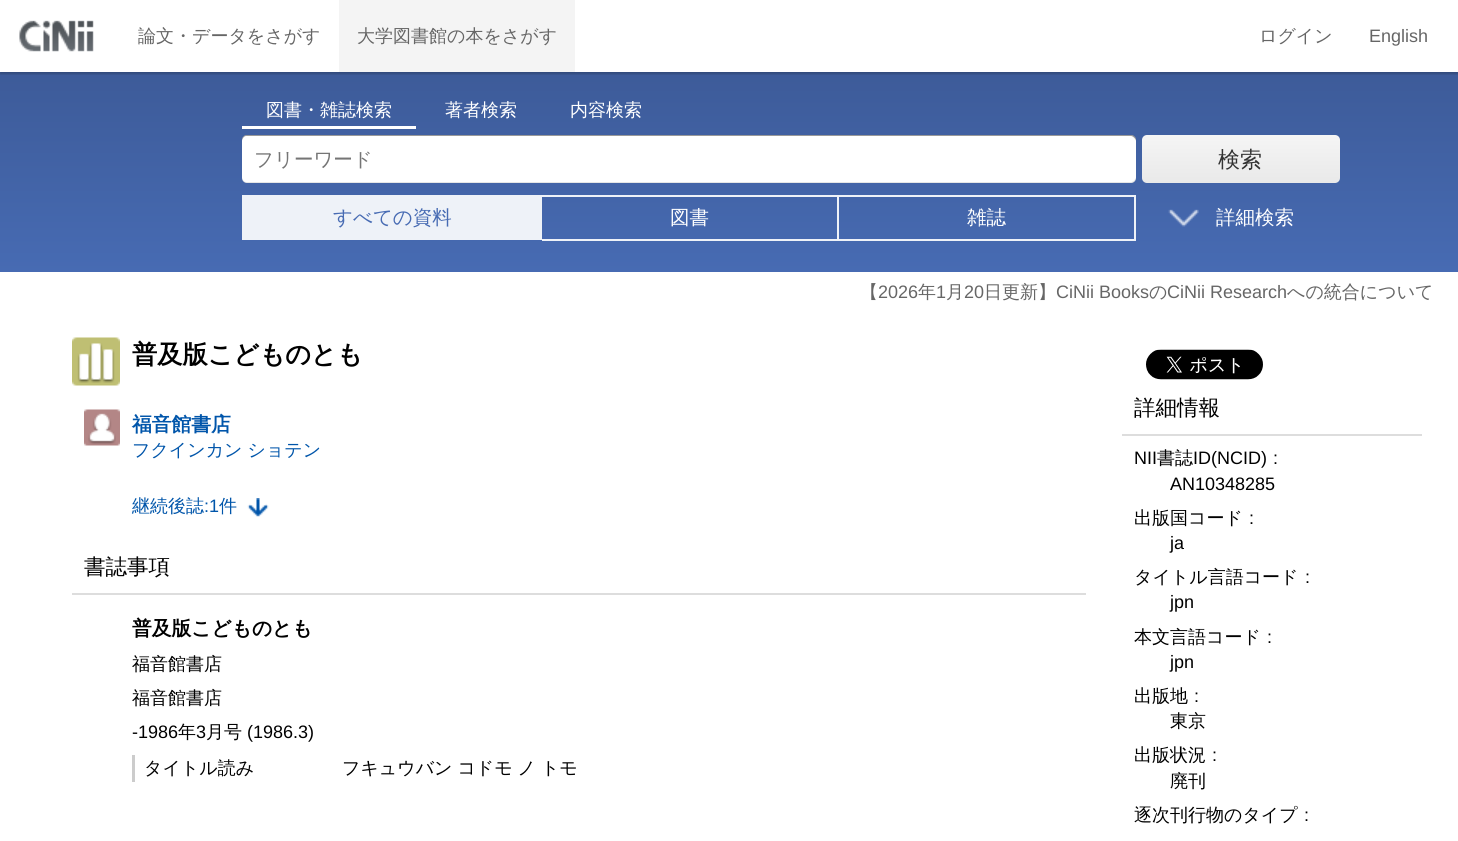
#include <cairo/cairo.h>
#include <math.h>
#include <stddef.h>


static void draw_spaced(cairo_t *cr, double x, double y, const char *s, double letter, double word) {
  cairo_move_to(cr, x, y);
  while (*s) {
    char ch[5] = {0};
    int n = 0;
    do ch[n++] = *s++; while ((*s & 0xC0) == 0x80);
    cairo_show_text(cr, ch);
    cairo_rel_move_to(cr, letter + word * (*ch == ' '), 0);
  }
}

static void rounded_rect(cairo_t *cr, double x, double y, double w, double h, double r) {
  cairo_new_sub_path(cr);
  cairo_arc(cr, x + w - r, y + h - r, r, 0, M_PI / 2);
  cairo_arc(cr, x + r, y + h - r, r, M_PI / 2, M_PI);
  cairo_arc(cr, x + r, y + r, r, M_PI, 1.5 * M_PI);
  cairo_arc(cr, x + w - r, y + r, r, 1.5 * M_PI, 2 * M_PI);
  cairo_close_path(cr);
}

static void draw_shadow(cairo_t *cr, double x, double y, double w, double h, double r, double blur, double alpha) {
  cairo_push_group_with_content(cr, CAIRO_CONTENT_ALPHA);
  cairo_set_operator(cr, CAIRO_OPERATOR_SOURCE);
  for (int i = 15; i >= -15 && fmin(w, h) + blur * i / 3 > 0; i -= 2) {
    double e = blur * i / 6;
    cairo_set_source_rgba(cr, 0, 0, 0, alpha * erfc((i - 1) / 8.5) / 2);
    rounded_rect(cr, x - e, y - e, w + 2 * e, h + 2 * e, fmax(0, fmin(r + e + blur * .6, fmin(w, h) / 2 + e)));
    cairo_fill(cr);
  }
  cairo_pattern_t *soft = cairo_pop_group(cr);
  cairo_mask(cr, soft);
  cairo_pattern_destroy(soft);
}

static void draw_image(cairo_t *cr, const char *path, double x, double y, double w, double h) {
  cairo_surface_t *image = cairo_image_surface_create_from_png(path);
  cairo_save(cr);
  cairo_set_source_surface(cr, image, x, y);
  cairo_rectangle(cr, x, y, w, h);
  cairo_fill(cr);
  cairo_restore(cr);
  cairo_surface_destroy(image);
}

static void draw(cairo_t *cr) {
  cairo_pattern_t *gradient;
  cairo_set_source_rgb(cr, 1, 1, 1);
  cairo_paint(cr);
  gradient = cairo_pattern_create_linear(729, 72, 729, 272);
  cairo_pattern_add_color_stop_rgba(gradient, 0, 61 / 255.0, 91 / 255.0, 153 / 255.0, 1);
  cairo_pattern_add_color_stop_rgba(gradient, 1, 71 / 255.0, 107 / 255.0, 179 / 255.0, 1);
  cairo_set_source(cr, gradient);
  cairo_pattern_destroy(gradient);
  cairo_rectangle(cr, 0, 72, 1458, 200);
  cairo_fill(cr);
  cairo_save(cr);
  cairo_rectangle(cr, 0, 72, 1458, 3);
  cairo_clip(cr);
  cairo_set_source_rgb(cr, 0, 0, 0);
  draw_shadow(cr, 0, 2, 1458, 72, 0, 1, 0.2);
  cairo_restore(cr);
  draw_image(cr, "images/1.png", 19, 20, 75, 32);
  cairo_set_source_rgb(cr, 244 / 255.0, 244 / 255.0, 244 / 255.0);
  cairo_rectangle(cr, 339, 0, 236, 72);
  cairo_fill(cr);
  cairo_set_source_rgb(cr, 1, 1, 1);
  cairo_rectangle(cr, 242, 126, 174, 3);
  cairo_fill(cr);
  rounded_rect(cr, 242, 135, 894, 48, 5);
  cairo_fill(cr);
  cairo_set_source_rgba(cr, 0, 0, 0, 0.1);
  cairo_new_path(cr);
  cairo_move_to(cr, 242, 177);
  cairo_line_to(cr, 242, 178);
  cairo_curve_to(cr, 242, 181, 244, 183, 247, 183);
  cairo_line_to(cr, 1131, 183);
  cairo_curve_to(cr, 1134, 183, 1136, 181, 1136, 178);
  cairo_line_to(cr, 1136, 177);
  cairo_curve_to(cr, 1136, 179, 1133, 182, 1131, 182);
  cairo_line_to(cr, 246, 182);
  cairo_curve_to(cr, 244, 182, 242, 179, 242, 177);
  cairo_close_path(cr);
  cairo_fill(cr);
  cairo_set_source_rgba(cr, 0, 0, 0, 0.4);
  cairo_new_path(cr);
  cairo_move_to(cr, 246, 136);
  cairo_line_to(cr, 1131, 136);
  cairo_curve_to(cr, 1133, 136, 1136, 139, 1136, 141);
  cairo_line_to(cr, 1136, 140);
  cairo_curve_to(cr, 1136, 137, 1134, 135, 1131, 135);
  cairo_line_to(cr, 247, 135);
  cairo_curve_to(cr, 244, 135, 242, 137, 242, 140);
  cairo_line_to(cr, 242, 141);
  cairo_curve_to(cr, 242, 139, 244, 136, 246, 136);
  cairo_close_path(cr);
  cairo_fill(cr);
  gradient = cairo_pattern_create_linear(1241, 135, 1241, 183);
  cairo_pattern_add_color_stop_rgba(gradient, 0, 245 / 255.0, 245 / 255.0, 245 / 255.0, 1);
  cairo_pattern_add_color_stop_rgba(gradient, 1, 233 / 255.0, 233 / 255.0, 233 / 255.0, 1);
  cairo_set_source(cr, gradient);
  cairo_pattern_destroy(gradient);
  rounded_rect(cr, 1142, 135, 198, 48, 5);
  cairo_fill(cr);
  cairo_set_source_rgb(cr, 238 / 255.0, 242 / 255.0, 248 / 255.0);
  cairo_rectangle(cr, 242, 195, 300, 45);
  cairo_fill(cr);
  cairo_rectangle(cr, 542, 195, 594, 2);
  cairo_fill(cr);
  cairo_rectangle(cr, 837, 195, 2, 45);
  cairo_fill(cr);
  cairo_rectangle(cr, 542, 239, 297, 2);
  cairo_fill(cr);
  cairo_rectangle(cr, 1134, 195, 2, 45);
  cairo_fill(cr);
  cairo_rectangle(cr, 839, 239, 297, 2);
  cairo_fill(cr);
  draw_image(cr, "images/2.png", 1168, 209, 31, 18);
  draw_image(cr, "images/3.png", 72, 337, 48, 49);
  draw_image(cr, "images/4.png", 84, 409, 36, 37);
  draw_image(cr, "images/5.png", 247, 498, 22, 19);
  cairo_set_source_rgb(cr, 221 / 255.0, 221 / 255.0, 221 / 255.0);
  cairo_rectangle(cr, 72, 593, 1014, 2);
  cairo_fill(cr);
  cairo_set_source_rgb(cr, 204 / 255.0, 204 / 255.0, 204 / 255.0);
  cairo_rectangle(cr, 132, 755, 3, 27);
  cairo_fill(cr);
  draw_image(cr, "images/6.png", 1146, 349, 117, 31);
  cairo_set_source_rgb(cr, 221 / 255.0, 221 / 255.0, 221 / 255.0);
  cairo_rectangle(cr, 1122, 434, 300, 2);
  cairo_fill(cr);
  cairo_select_font_face(cr, "WenQuanYi Zen Hei Medium", CAIRO_FONT_SLANT_NORMAL, CAIRO_FONT_WEIGHT_NORMAL);
  cairo_set_font_size(cr, 18);
  cairo_set_source_rgb(cr, 102 / 255.0, 102 / 255.0, 102 / 255.0);
  cairo_move_to(cr, 138, 42);
  cairo_show_text(cr, "論文・データをさがす");
  cairo_move_to(cr, 357, 42);
  cairo_show_text(cr, "大学図書館の本をさがす");
  cairo_move_to(cr, 1259, 42);
  cairo_show_text(cr, "ログイン");
  cairo_select_font_face(cr, "Liberation Sans", CAIRO_FONT_SLANT_NORMAL, CAIRO_FONT_WEIGHT_NORMAL);
  cairo_move_to(cr, 1369, 42);
  cairo_show_text(cr, "English");
  cairo_select_font_face(cr, "WenQuanYi Zen Hei Medium", CAIRO_FONT_SLANT_NORMAL, CAIRO_FONT_WEIGHT_NORMAL);
  cairo_set_source_rgb(cr, 1, 1, 1);
  cairo_move_to(cr, 266, 116);
  cairo_show_text(cr, "図書・雑誌検索");
  cairo_move_to(cr, 445, 116);
  cairo_show_text(cr, "著者検索");
  cairo_move_to(cr, 570, 116);
  cairo_show_text(cr, "内容検索");
  cairo_set_font_size(cr, 19.5);
  cairo_set_source_rgb(cr, 117 / 255.0, 117 / 255.0, 117 / 255.0);
  cairo_move_to(cr, 254, 166);
  cairo_show_text(cr, "フリーワード");
  cairo_set_font_size(cr, 22);
  cairo_set_source_rgb(cr, 51 / 255.0, 51 / 255.0, 51 / 255.0);
  cairo_move_to(cr, 1218, 167);
  cairo_show_text(cr, "検索");
  cairo_set_font_size(cr, 19.5);
  cairo_set_source_rgb(cr, 71 / 255.0, 107 / 255.0, 179 / 255.0);
  cairo_move_to(cr, 333, 224);
  cairo_show_text(cr, "すべての資料");
  cairo_set_source_rgb(cr, 1, 1, 1);
  cairo_move_to(cr, 670, 224);
  cairo_show_text(cr, "図書");
  cairo_move_to(cr, 967, 224);
  cairo_show_text(cr, "雑誌");
  cairo_move_to(cr, 1216, 224);
  cairo_show_text(cr, "詳細検索");
  cairo_set_font_size(cr, 18);
  cairo_set_source_rgb(cr, 102 / 255.0, 102 / 255.0, 102 / 255.0);
  cairo_move_to(cr, 860, 298);
  cairo_show_text(cr, "【");
  cairo_select_font_face(cr, "Liberation Sans", CAIRO_FONT_SLANT_NORMAL, CAIRO_FONT_WEIGHT_NORMAL);
  cairo_move_to(cr, 878, 298);
  cairo_show_text(cr, "2026");
  cairo_select_font_face(cr, "WenQuanYi Zen Hei Medium", CAIRO_FONT_SLANT_NORMAL, CAIRO_FONT_WEIGHT_NORMAL);
  cairo_move_to(cr, 918, 298);
  cairo_show_text(cr, "年");
  cairo_select_font_face(cr, "Liberation Sans", CAIRO_FONT_SLANT_NORMAL, CAIRO_FONT_WEIGHT_NORMAL);
  cairo_move_to(cr, 936, 298);
  cairo_show_text(cr, "1");
  cairo_select_font_face(cr, "WenQuanYi Zen Hei Medium", CAIRO_FONT_SLANT_NORMAL, CAIRO_FONT_WEIGHT_NORMAL);
  cairo_move_to(cr, 946, 298);
  cairo_show_text(cr, "月");
  cairo_select_font_face(cr, "Liberation Sans", CAIRO_FONT_SLANT_NORMAL, CAIRO_FONT_WEIGHT_NORMAL);
  cairo_move_to(cr, 964, 298);
  cairo_show_text(cr, "20");
  cairo_select_font_face(cr, "WenQuanYi Zen Hei Medium", CAIRO_FONT_SLANT_NORMAL, CAIRO_FONT_WEIGHT_NORMAL);
  cairo_move_to(cr, 984, 298);
  cairo_show_text(cr, "日更新】");
  cairo_select_font_face(cr, "Liberation Sans", CAIRO_FONT_SLANT_NORMAL, CAIRO_FONT_WEIGHT_NORMAL);
  cairo_move_to(cr, 1056, 298);
  cairo_show_text(cr, "CiNii Books");
  cairo_select_font_face(cr, "WenQuanYi Zen Hei Medium", CAIRO_FONT_SLANT_NORMAL, CAIRO_FONT_WEIGHT_NORMAL);
  cairo_move_to(cr, 1149, 298);
  cairo_show_text(cr, "の");
  cairo_select_font_face(cr, "Liberation Sans", CAIRO_FONT_SLANT_NORMAL, CAIRO_FONT_WEIGHT_NORMAL);
  cairo_move_to(cr, 1167, 298);
  cairo_show_text(cr, "CiNii Research");
  cairo_select_font_face(cr, "WenQuanYi Zen Hei Medium", CAIRO_FONT_SLANT_NORMAL, CAIRO_FONT_WEIGHT_NORMAL);
  cairo_move_to(cr, 1287, 298);
  cairo_show_text(cr, "への統合について");
  cairo_select_font_face(cr, "WenQuanYi Zen Hei", CAIRO_FONT_SLANT_NORMAL, CAIRO_FONT_WEIGHT_BOLD);
  cairo_set_font_size(cr, 25.25);
  cairo_set_source_rgb(cr, 0, 0, 0);
  cairo_move_to(cr, 132, 363);
  cairo_show_text(cr, "普及版こどものとも");
  cairo_set_font_size(cr, 19.75);
  cairo_set_source_rgb(cr, 0, 85 / 255.0, 170 / 255.0);
  cairo_move_to(cr, 132, 431);
  cairo_show_text(cr, "福音館書店");
  cairo_select_font_face(cr, "WenQuanYi Zen Hei Medium", CAIRO_FONT_SLANT_NORMAL, CAIRO_FONT_WEIGHT_NORMAL);
  cairo_set_font_size(cr, 18);
  draw_spaced(cr, 132, 456, "フクインカン ショテン", 0, -0.5);
  cairo_move_to(cr, 132, 512);
  cairo_show_text(cr, "継続後誌");
  cairo_select_font_face(cr, "Liberation Sans", CAIRO_FONT_SLANT_NORMAL, CAIRO_FONT_WEIGHT_NORMAL);
  cairo_move_to(cr, 204, 512);
  cairo_show_text(cr, ":1");
  cairo_select_font_face(cr, "WenQuanYi Zen Hei Medium", CAIRO_FONT_SLANT_NORMAL, CAIRO_FONT_WEIGHT_NORMAL);
  cairo_move_to(cr, 219, 512);
  cairo_show_text(cr, "件");
  cairo_set_font_size(cr, 21.5);
  cairo_set_source_rgb(cr, 0, 0, 0);
  cairo_move_to(cr, 84, 574);
  cairo_show_text(cr, "書誌事項");
  cairo_select_font_face(cr, "WenQuanYi Zen Hei", CAIRO_FONT_SLANT_NORMAL, CAIRO_FONT_WEIGHT_BOLD);
  cairo_set_font_size(cr, 19.75);
  cairo_move_to(cr, 132, 635);
  cairo_show_text(cr, "普及版こどものとも");
  cairo_select_font_face(cr, "WenQuanYi Zen Hei Medium", CAIRO_FONT_SLANT_NORMAL, CAIRO_FONT_WEIGHT_NORMAL);
  cairo_set_font_size(cr, 18);
  cairo_move_to(cr, 132, 670);
  cairo_show_text(cr, "福音館書店");
  cairo_move_to(cr, 132, 704);
  cairo_show_text(cr, "福音館書店");
  cairo_select_font_face(cr, "Liberation Sans", CAIRO_FONT_SLANT_NORMAL, CAIRO_FONT_WEIGHT_NORMAL);
  cairo_move_to(cr, 132, 738);
  cairo_show_text(cr, "-1986");
  cairo_select_font_face(cr, "WenQuanYi Zen Hei Medium", CAIRO_FONT_SLANT_NORMAL, CAIRO_FONT_WEIGHT_NORMAL);
  cairo_move_to(cr, 178, 738);
  cairo_show_text(cr, "年");
  cairo_select_font_face(cr, "Liberation Sans", CAIRO_FONT_SLANT_NORMAL, CAIRO_FONT_WEIGHT_NORMAL);
  cairo_move_to(cr, 196, 738);
  cairo_show_text(cr, "3");
  cairo_select_font_face(cr, "WenQuanYi Zen Hei Medium", CAIRO_FONT_SLANT_NORMAL, CAIRO_FONT_WEIGHT_NORMAL);
  cairo_move_to(cr, 206, 738);
  cairo_show_text(cr, "月号");
  cairo_select_font_face(cr, "Liberation Sans", CAIRO_FONT_SLANT_NORMAL, CAIRO_FONT_WEIGHT_NORMAL);
  cairo_move_to(cr, 247, 738);
  cairo_show_text(cr, "(1986.3)");
  cairo_select_font_face(cr, "WenQuanYi Zen Hei Medium", CAIRO_FONT_SLANT_NORMAL, CAIRO_FONT_WEIGHT_NORMAL);
  cairo_move_to(cr, 144, 774);
  cairo_show_text(cr, "タイトル読み");
  draw_spaced(cr, 342, 774, "フキュウバン コドモ ノ トモ", 0, -0.5);
  cairo_set_font_size(cr, 21.5);
  cairo_move_to(cr, 1134, 415);
  cairo_show_text(cr, "詳細情報");
  cairo_select_font_face(cr, "Liberation Sans", CAIRO_FONT_SLANT_NORMAL, CAIRO_FONT_WEIGHT_NORMAL);
  cairo_set_font_size(cr, 18);
  cairo_move_to(cr, 1134, 464);
  cairo_show_text(cr, "NII");
  cairo_select_font_face(cr, "WenQuanYi Zen Hei Medium", CAIRO_FONT_SLANT_NORMAL, CAIRO_FONT_WEIGHT_NORMAL);
  cairo_move_to(cr, 1157, 464);
  cairo_show_text(cr, "書誌");
  cairo_select_font_face(cr, "Liberation Sans", CAIRO_FONT_SLANT_NORMAL, CAIRO_FONT_WEIGHT_NORMAL);
  cairo_move_to(cr, 1193, 464);
  cairo_show_text(cr, "ID(NCID)");
  cairo_move_to(cr, 1273, 464);
  cairo_show_text(cr, ":");
  cairo_move_to(cr, 1170, 490);
  cairo_show_text(cr, "AN10348285");
  cairo_select_font_face(cr, "WenQuanYi Zen Hei Medium", CAIRO_FONT_SLANT_NORMAL, CAIRO_FONT_WEIGHT_NORMAL);
  cairo_move_to(cr, 1134, 524);
  cairo_show_text(cr, "出版国コード");
  cairo_select_font_face(cr, "Liberation Sans", CAIRO_FONT_SLANT_NORMAL, CAIRO_FONT_WEIGHT_NORMAL);
  cairo_move_to(cr, 1249, 524);
  cairo_show_text(cr, ":");
  cairo_move_to(cr, 1170, 549);
  cairo_show_text(cr, "ja");
  cairo_select_font_face(cr, "WenQuanYi Zen Hei Medium", CAIRO_FONT_SLANT_NORMAL, CAIRO_FONT_WEIGHT_NORMAL);
  cairo_move_to(cr, 1134, 583);
  cairo_show_text(cr, "タイトル言語コード");
  cairo_select_font_face(cr, "Liberation Sans", CAIRO_FONT_SLANT_NORMAL, CAIRO_FONT_WEIGHT_NORMAL);
  cairo_move_to(cr, 1305, 583);
  cairo_show_text(cr, ":");
  cairo_move_to(cr, 1170, 608);
  cairo_show_text(cr, "jpn");
  cairo_select_font_face(cr, "WenQuanYi Zen Hei Medium", CAIRO_FONT_SLANT_NORMAL, CAIRO_FONT_WEIGHT_NORMAL);
  cairo_move_to(cr, 1134, 643);
  cairo_show_text(cr, "本文言語コード");
  cairo_select_font_face(cr, "Liberation Sans", CAIRO_FONT_SLANT_NORMAL, CAIRO_FONT_WEIGHT_NORMAL);
  cairo_move_to(cr, 1267, 643);
  cairo_show_text(cr, ":");
  cairo_move_to(cr, 1170, 668);
  cairo_show_text(cr, "jpn");
  cairo_select_font_face(cr, "WenQuanYi Zen Hei Medium", CAIRO_FONT_SLANT_NORMAL, CAIRO_FONT_WEIGHT_NORMAL);
  cairo_move_to(cr, 1134, 702);
  cairo_show_text(cr, "出版地");
  cairo_select_font_face(cr, "Liberation Sans", CAIRO_FONT_SLANT_NORMAL, CAIRO_FONT_WEIGHT_NORMAL);
  cairo_move_to(cr, 1194, 702);
  cairo_show_text(cr, ":");
  cairo_select_font_face(cr, "WenQuanYi Zen Hei Medium", CAIRO_FONT_SLANT_NORMAL, CAIRO_FONT_WEIGHT_NORMAL);
  cairo_move_to(cr, 1170, 727);
  cairo_show_text(cr, "東京");
  cairo_move_to(cr, 1134, 761);
  cairo_show_text(cr, "出版状況");
  cairo_select_font_face(cr, "Liberation Sans", CAIRO_FONT_SLANT_NORMAL, CAIRO_FONT_WEIGHT_NORMAL);
  cairo_move_to(cr, 1212, 761);
  cairo_show_text(cr, ":");
  cairo_select_font_face(cr, "WenQuanYi Zen Hei Medium", CAIRO_FONT_SLANT_NORMAL, CAIRO_FONT_WEIGHT_NORMAL);
  cairo_move_to(cr, 1170, 787);
  cairo_show_text(cr, "廃刊");
  cairo_move_to(cr, 1134, 821);
  cairo_show_text(cr, "逐次刊行物のタイプ");
  cairo_select_font_face(cr, "Liberation Sans", CAIRO_FONT_SLANT_NORMAL, CAIRO_FONT_WEIGHT_NORMAL);
  cairo_move_to(cr, 1304, 821);
  cairo_show_text(cr, ":");
}

int main(void) {
  cairo_surface_t *surface = cairo_image_surface_create(CAIRO_FORMAT_RGB24, 1458, 841);
  cairo_t *cr = cairo_create(surface);
  cairo_font_options_t *options = cairo_font_options_create();
  cairo_font_options_set_hint_metrics(options, CAIRO_HINT_METRICS_OFF);
  cairo_font_options_set_hint_style(options, CAIRO_HINT_STYLE_NONE);
  cairo_set_font_options(cr, options);
  cairo_set_miter_limit(cr, 4);
  draw(cr);
  cairo_surface_write_to_png(surface, "out.png");
  cairo_font_options_destroy(options);
  cairo_destroy(cr);
  cairo_surface_destroy(surface);
  return 0;
}
